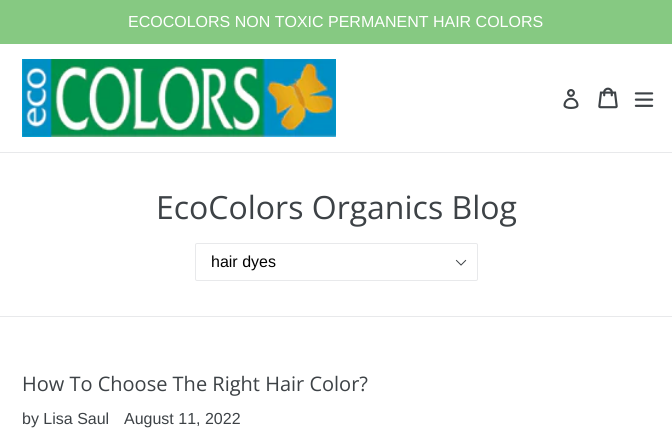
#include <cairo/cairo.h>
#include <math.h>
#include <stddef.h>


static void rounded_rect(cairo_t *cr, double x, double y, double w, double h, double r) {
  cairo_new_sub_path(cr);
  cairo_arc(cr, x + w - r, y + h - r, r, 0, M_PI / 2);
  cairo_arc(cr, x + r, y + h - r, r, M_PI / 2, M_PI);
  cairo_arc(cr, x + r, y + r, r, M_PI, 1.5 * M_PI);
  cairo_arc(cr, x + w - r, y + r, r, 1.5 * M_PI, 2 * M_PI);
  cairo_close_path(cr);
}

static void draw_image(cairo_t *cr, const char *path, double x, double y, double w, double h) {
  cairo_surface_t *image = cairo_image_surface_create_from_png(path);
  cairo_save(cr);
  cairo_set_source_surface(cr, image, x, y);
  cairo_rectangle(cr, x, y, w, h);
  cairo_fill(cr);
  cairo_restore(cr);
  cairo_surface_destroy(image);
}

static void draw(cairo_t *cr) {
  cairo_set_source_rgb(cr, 1, 1, 1);
  cairo_paint(cr);
  cairo_set_source_rgb(cr, 134 / 255.0, 201 / 255.0, 130 / 255.0);
  cairo_rectangle(cr, 0, 0, 672, 44);
  cairo_fill(cr);
  cairo_set_source_rgb(cr, 232 / 255.0, 233 / 255.0, 235 / 255.0);
  cairo_rectangle(cr, 0, 152, 672, 1);
  cairo_fill(cr);
  draw_image(cr, "images/1.png", 22, 59, 314, 78);
  draw_image(cr, "images/2.png", 563, 89, 16, 20);
  draw_image(cr, "images/3.png", 598, 87, 20, 22);
  draw_image(cr, "images/4.png", 634, 92, 20, 15);
  draw_image(cr, "images/5.png", 455, 259, 12, 7);
  rounded_rect(cr, 195.5, 243.5, 282, 37, 1.5);
  cairo_set_line_width(cr, 1);
  cairo_stroke(cr);
  cairo_rectangle(cr, 0, 316, 672, 1);
  cairo_fill(cr);
  cairo_select_font_face(cr, "Liberation Sans", CAIRO_FONT_SLANT_NORMAL, CAIRO_FONT_WEIGHT_NORMAL);
  cairo_set_font_size(cr, 16);
  cairo_set_source_rgb(cr, 1, 1, 1);
  cairo_move_to(cr, 128, 27);
  cairo_show_text(cr, "ECOCOLORS NON TOXIC PERMANENT HAIR COLORS");
  cairo_select_font_face(cr, "Open Sans", CAIRO_FONT_SLANT_NORMAL, CAIRO_FONT_WEIGHT_NORMAL);
  cairo_set_font_size(cr, 32);
  cairo_set_source_rgb(cr, 61 / 255.0, 66 / 255.0, 70 / 255.0);
  cairo_move_to(cr, 156, 219);
  cairo_show_text(cr, "EcoColors Organics Blog");
  cairo_select_font_face(cr, "Liberation Sans", CAIRO_FONT_SLANT_NORMAL, CAIRO_FONT_WEIGHT_NORMAL);
  cairo_set_font_size(cr, 16);
  cairo_set_source_rgb(cr, 0, 0, 0);
  cairo_move_to(cr, 211, 267);
  cairo_show_text(cr, "hair dyes");
  cairo_select_font_face(cr, "Open Sans", CAIRO_FONT_SLANT_NORMAL, CAIRO_FONT_WEIGHT_NORMAL);
  cairo_set_font_size(cr, 20);
  cairo_set_source_rgb(cr, 61 / 255.0, 66 / 255.0, 70 / 255.0);
  cairo_move_to(cr, 22, 391);
  cairo_show_text(cr, "How To Choose The Right Hair Color?");
  cairo_select_font_face(cr, "Liberation Sans", CAIRO_FONT_SLANT_NORMAL, CAIRO_FONT_WEIGHT_NORMAL);
  cairo_set_font_size(cr, 16);
  cairo_move_to(cr, 22, 424);
  cairo_show_text(cr, "by Lisa Saul");
  cairo_move_to(cr, 124, 424);
  cairo_show_text(cr, "August 11, 2022");
}

int main(void) {
  cairo_surface_t *surface = cairo_image_surface_create(CAIRO_FORMAT_RGB24, 672, 431);
  cairo_t *cr = cairo_create(surface);
  cairo_font_options_t *options = cairo_font_options_create();
  cairo_font_options_set_hint_metrics(options, CAIRO_HINT_METRICS_OFF);
  cairo_font_options_set_hint_style(options, CAIRO_HINT_STYLE_NONE);
  cairo_set_font_options(cr, options);
  cairo_set_miter_limit(cr, 4);
  draw(cr);
  cairo_surface_write_to_png(surface, "out.png");
  cairo_font_options_destroy(options);
  cairo_destroy(cr);
  cairo_surface_destroy(surface);
  return 0;
}
